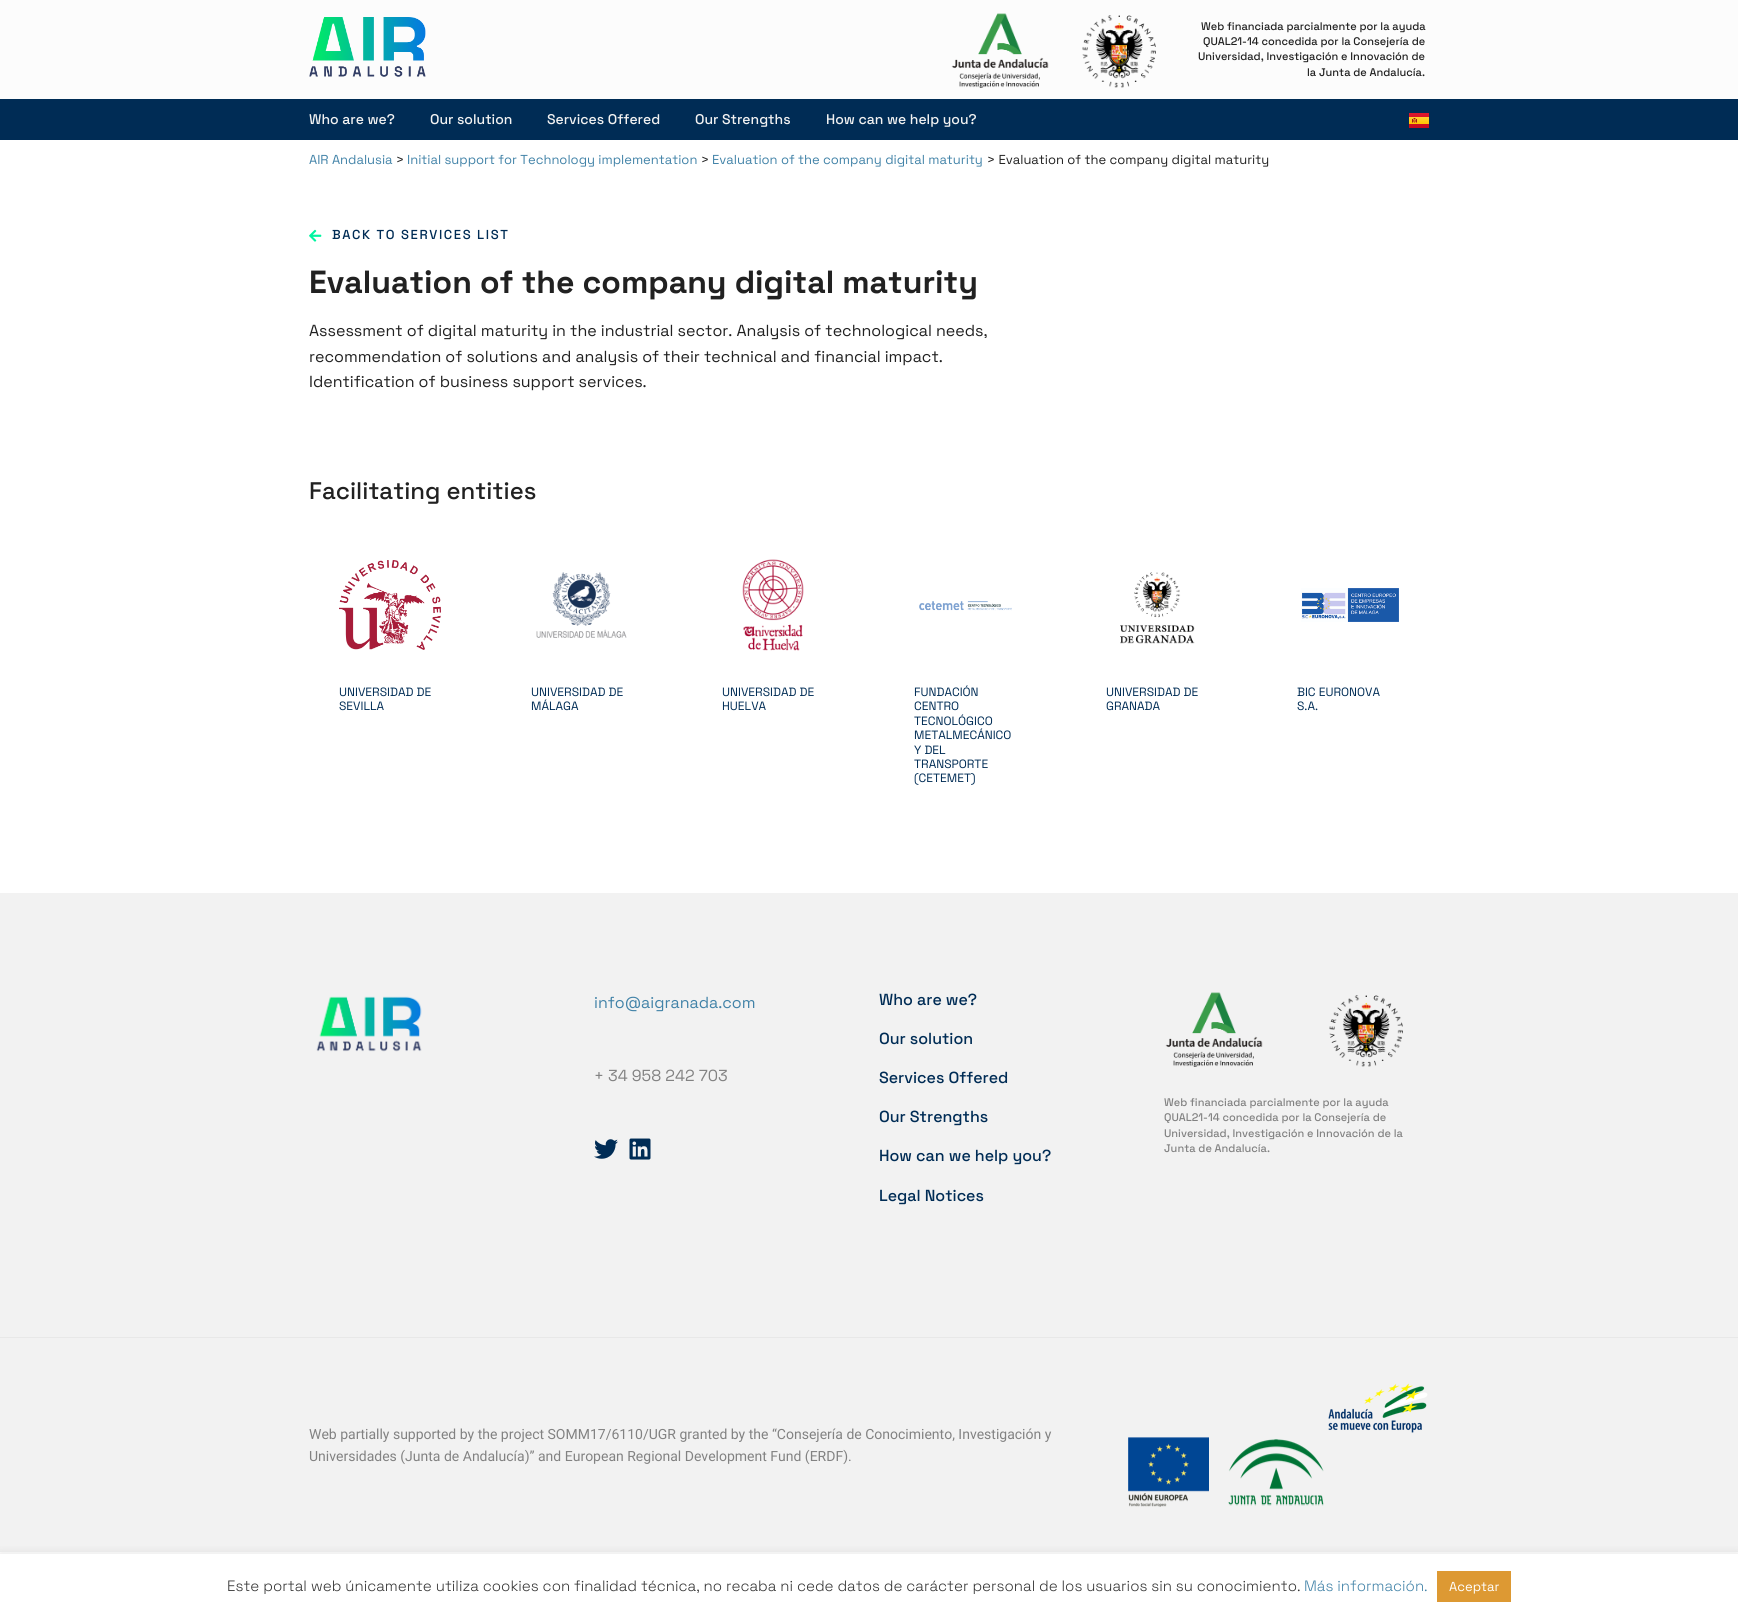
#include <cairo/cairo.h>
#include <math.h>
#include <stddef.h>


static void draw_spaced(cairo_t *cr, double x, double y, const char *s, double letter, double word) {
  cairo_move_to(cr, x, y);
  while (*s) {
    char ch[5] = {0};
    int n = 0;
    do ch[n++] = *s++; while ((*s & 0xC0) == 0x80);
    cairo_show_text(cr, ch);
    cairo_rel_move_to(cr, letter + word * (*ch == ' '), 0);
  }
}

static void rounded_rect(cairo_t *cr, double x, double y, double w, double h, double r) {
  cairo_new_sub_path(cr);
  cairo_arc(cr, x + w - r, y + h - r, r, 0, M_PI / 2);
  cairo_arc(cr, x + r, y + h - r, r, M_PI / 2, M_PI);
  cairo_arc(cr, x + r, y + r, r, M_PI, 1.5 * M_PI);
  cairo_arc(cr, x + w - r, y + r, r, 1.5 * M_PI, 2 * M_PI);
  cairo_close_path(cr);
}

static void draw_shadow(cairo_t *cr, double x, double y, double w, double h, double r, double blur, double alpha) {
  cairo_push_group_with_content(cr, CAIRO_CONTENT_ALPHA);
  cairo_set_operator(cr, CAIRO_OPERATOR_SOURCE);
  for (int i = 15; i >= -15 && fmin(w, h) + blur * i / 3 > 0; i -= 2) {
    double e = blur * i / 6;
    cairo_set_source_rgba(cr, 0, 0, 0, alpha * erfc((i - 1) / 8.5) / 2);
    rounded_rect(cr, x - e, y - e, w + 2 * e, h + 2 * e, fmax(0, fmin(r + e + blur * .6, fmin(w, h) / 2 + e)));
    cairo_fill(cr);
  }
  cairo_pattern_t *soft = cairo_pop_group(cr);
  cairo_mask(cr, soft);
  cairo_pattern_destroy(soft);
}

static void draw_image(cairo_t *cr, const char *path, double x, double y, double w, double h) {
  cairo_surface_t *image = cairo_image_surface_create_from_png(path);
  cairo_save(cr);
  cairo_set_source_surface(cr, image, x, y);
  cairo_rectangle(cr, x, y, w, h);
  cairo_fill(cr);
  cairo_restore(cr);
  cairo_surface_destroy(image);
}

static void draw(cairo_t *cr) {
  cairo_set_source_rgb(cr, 1, 1, 1);
  cairo_paint(cr);
  cairo_set_source_rgb(cr, 252 / 255.0, 252 / 255.0, 252 / 255.0);
  cairo_rectangle(cr, 0, 0, 1738, 99);
  cairo_fill(cr);
  draw_image(cr, "images/1.png", 309, 17, 117, 60);
  draw_image(cr, "images/2.png", 951, 13, 98, 75);
  draw_image(cr, "images/3.png", 1082, 15, 74, 73);
  cairo_set_source_rgb(cr, 0, 44 / 255.0, 85 / 255.0);
  cairo_rectangle(cr, 0, 99, 1738, 41);
  cairo_fill(cr);
  draw_image(cr, "images/4.png", 1409, 113, 20, 15);
  draw_image(cr, "images/5.png", 309, 229, 13, 13);
  draw_image(cr, "images/6.png", 339, 560, 102, 90);
  draw_image(cr, "images/7.png", 536, 572, 91, 66);
  draw_image(cr, "images/8.png", 742, 559, 62, 92);
  draw_image(cr, "images/9.png", 919, 601, 93, 10);
  draw_image(cr, "images/10.png", 1120, 572, 75, 72);
  draw_image(cr, "images/11.png", 1301, 588, 98, 34);
  cairo_set_source_rgb(cr, 242 / 255.0, 242 / 255.0, 242 / 255.0);
  cairo_rectangle(cr, 0, 893, 1738, 444);
  cairo_fill(cr);
  draw_image(cr, "images/12.png", 316, 996, 106, 56);
  draw_image(cr, "images/13.png", 594, 1139, 24, 20);
  draw_image(cr, "images/14.png", 629, 1138, 22, 22);
  draw_image(cr, "images/15.png", 1165, 992, 98, 75);
  draw_image(cr, "images/16.png", 1329, 995, 74, 72);
  cairo_rectangle(cr, 0, 1338, 1738, 214);
  cairo_fill(cr);
  cairo_set_source_rgb(cr, 232 / 255.0, 232 / 255.0, 232 / 255.0);
  cairo_rectangle(cr, 0, 1337, 1738, 1);
  cairo_fill(cr);
  draw_image(cr, "images/17.png", 1128, 1383, 300, 124);
  cairo_save(cr);
  cairo_rectangle(cr, 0, 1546, 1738, 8);
  cairo_clip(cr);
  cairo_set_source_rgb(cr, 172 / 255.0, 171 / 255.0, 171 / 255.0);
  draw_shadow(cr, 0, 1553, 1738, 60, 0, 5, 0.3);
  cairo_restore(cr);
  cairo_set_source_rgb(cr, 221 / 255.0, 153 / 255.0, 51 / 255.0);
  cairo_rectangle(cr, 1437, 1571, 74, 31);
  cairo_fill(cr);
  cairo_select_font_face(cr, "Space Grotesk Medium", CAIRO_FONT_SLANT_NORMAL, CAIRO_FONT_WEIGHT_NORMAL);
  cairo_set_font_size(cr, 11);
  cairo_set_source_rgb(cr, 33 / 255.0, 33 / 255.0, 33 / 255.0);
  cairo_move_to(cr, 1201, 30);
  cairo_show_text(cr, "Web financiada parcialmente por la ayuda");
  cairo_move_to(cr, 1203, 45);
  cairo_show_text(cr, "QUAL21-14 concedida por la Consejería de");
  cairo_move_to(cr, 1198, 60);
  cairo_show_text(cr, "Universidad, Investigación e Innovación de");
  cairo_move_to(cr, 1307, 76);
  cairo_show_text(cr, "la Junta de Andalucía.");
  cairo_set_font_size(cr, 14);
  cairo_set_source_rgb(cr, 242 / 255.0, 242 / 255.0, 242 / 255.0);
  cairo_move_to(cr, 309, 124);
  cairo_show_text(cr, "Who are we?");
  cairo_move_to(cr, 430, 124);
  cairo_show_text(cr, "Our solution");
  cairo_move_to(cr, 547, 124);
  cairo_show_text(cr, "Services Offered");
  cairo_move_to(cr, 695, 124);
  cairo_show_text(cr, "Our Strengths");
  cairo_move_to(cr, 826, 124);
  cairo_show_text(cr, "How can we help you?");
  cairo_select_font_face(cr, "Space Grotesk", CAIRO_FONT_SLANT_NORMAL, CAIRO_FONT_WEIGHT_NORMAL);
  cairo_set_font_size(cr, 13);
  cairo_set_source_rgb(cr, 66 / 255.0, 131 / 255.0, 168 / 255.0);
  cairo_move_to(cr, 309, 164);
  cairo_show_text(cr, "AIR Andalusia");
  cairo_set_source_rgb(cr, 33 / 255.0, 33 / 255.0, 33 / 255.0);
  cairo_move_to(cr, 396, 164);
  cairo_show_text(cr, ">");
  cairo_set_source_rgb(cr, 66 / 255.0, 131 / 255.0, 168 / 255.0);
  cairo_move_to(cr, 407, 164);
  cairo_show_text(cr, "Initial support for Technology implementation");
  cairo_set_source_rgb(cr, 33 / 255.0, 33 / 255.0, 33 / 255.0);
  cairo_move_to(cr, 701, 164);
  cairo_show_text(cr, ">");
  cairo_set_source_rgb(cr, 66 / 255.0, 131 / 255.0, 168 / 255.0);
  cairo_move_to(cr, 712, 164);
  cairo_show_text(cr, "Evaluation of the company digital maturity");
  cairo_set_source_rgb(cr, 33 / 255.0, 33 / 255.0, 33 / 255.0);
  cairo_move_to(cr, 987, 164);
  cairo_show_text(cr, "> Evaluation of the company digital maturity");
  cairo_select_font_face(cr, "Space Grotesk Medium", CAIRO_FONT_SLANT_NORMAL, CAIRO_FONT_WEIGHT_NORMAL);
  cairo_set_source_rgb(cr, 0, 44 / 255.0, 85 / 255.0);
  draw_spaced(cr, 332, 239, "BACK TO SERVICES LIST", 1.6, 0);
  cairo_select_font_face(cr, "Space Grotesk", CAIRO_FONT_SLANT_NORMAL, CAIRO_FONT_WEIGHT_BOLD);
  cairo_set_font_size(cr, 32);
  cairo_set_source_rgb(cr, 33 / 255.0, 33 / 255.0, 33 / 255.0);
  cairo_move_to(cr, 309, 293);
  cairo_show_text(cr, "Evaluation of the company digital maturity");
  cairo_select_font_face(cr, "Space Grotesk", CAIRO_FONT_SLANT_NORMAL, CAIRO_FONT_WEIGHT_NORMAL);
  cairo_set_font_size(cr, 16);
  cairo_move_to(cr, 309, 336);
  cairo_show_text(cr, "Assessment of digital maturity in the industrial sector. Analysis of technological needs,");
  cairo_move_to(cr, 309, 362);
  cairo_show_text(cr, "recommendation of solutions and analysis of their technical and financial impact.");
  cairo_move_to(cr, 309, 387);
  cairo_show_text(cr, "Identification of business support services.");
  cairo_select_font_face(cr, "Space Grotesk Medium", CAIRO_FONT_SLANT_NORMAL, CAIRO_FONT_WEIGHT_NORMAL);
  cairo_set_font_size(cr, 24);
  cairo_move_to(cr, 309, 499);
  cairo_show_text(cr, "Facilitating entities");
  cairo_select_font_face(cr, "Space Grotesk", CAIRO_FONT_SLANT_NORMAL, CAIRO_FONT_WEIGHT_NORMAL);
  cairo_set_font_size(cr, 12);
  cairo_set_source_rgb(cr, 0, 44 / 255.0, 85 / 255.0);
  cairo_move_to(cr, 339, 696);
  cairo_show_text(cr, "UNIVERSIDAD DE");
  cairo_move_to(cr, 339, 710);
  cairo_show_text(cr, "SEVILLA");
  cairo_move_to(cr, 531, 696);
  cairo_show_text(cr, "UNIVERSIDAD DE");
  cairo_move_to(cr, 531, 710);
  cairo_show_text(cr, "MÁLAGA");
  cairo_move_to(cr, 722, 696);
  cairo_show_text(cr, "UNIVERSIDAD DE");
  cairo_move_to(cr, 722, 710);
  cairo_show_text(cr, "HUELVA");
  cairo_move_to(cr, 914, 696);
  cairo_show_text(cr, "FUNDACIÓN");
  cairo_move_to(cr, 914, 710);
  cairo_show_text(cr, "CENTRO");
  cairo_move_to(cr, 914, 725);
  cairo_show_text(cr, "TECNOLÓGICO");
  cairo_move_to(cr, 914, 739);
  cairo_show_text(cr, "METALMECÁNICO");
  cairo_move_to(cr, 914, 754);
  cairo_show_text(cr, "Y DEL");
  cairo_move_to(cr, 914, 768);
  cairo_show_text(cr, "TRANSPORTE");
  cairo_move_to(cr, 914, 782);
  cairo_show_text(cr, "(CETEMET)");
  cairo_move_to(cr, 1106, 696);
  cairo_show_text(cr, "UNIVERSIDAD DE");
  cairo_move_to(cr, 1106, 710);
  cairo_show_text(cr, "GRANADA");
  cairo_move_to(cr, 1297, 696);
  cairo_show_text(cr, "BIC EURONOVA");
  cairo_move_to(cr, 1297, 710);
  cairo_show_text(cr, "S.A.");
  cairo_set_font_size(cr, 16);
  cairo_set_source_rgb(cr, 66 / 255.0, 131 / 255.0, 168 / 255.0);
  cairo_move_to(cr, 594, 1008);
  cairo_show_text(cr, "info@aigranada.com");
  cairo_set_source_rgb(cr, 130 / 255.0, 130 / 255.0, 130 / 255.0);
  cairo_move_to(cr, 594, 1081);
  cairo_show_text(cr, "+ 34 958 242 703");
  cairo_select_font_face(cr, "Space Grotesk Medium", CAIRO_FONT_SLANT_NORMAL, CAIRO_FONT_WEIGHT_NORMAL);
  cairo_set_source_rgb(cr, 0, 44 / 255.0, 85 / 255.0);
  cairo_move_to(cr, 879, 1005);
  cairo_show_text(cr, "Who are we?");
  cairo_move_to(cr, 879, 1044);
  cairo_show_text(cr, "Our solution");
  cairo_move_to(cr, 879, 1083);
  cairo_show_text(cr, "Services Offered");
  cairo_move_to(cr, 879, 1122);
  cairo_show_text(cr, "Our Strengths");
  cairo_move_to(cr, 879, 1161);
  cairo_show_text(cr, "How can we help you?");
  cairo_move_to(cr, 879, 1201);
  cairo_show_text(cr, "Legal Notices");
  cairo_set_font_size(cr, 11);
  cairo_set_source_rgb(cr, 130 / 255.0, 130 / 255.0, 130 / 255.0);
  cairo_move_to(cr, 1164, 1106);
  cairo_show_text(cr, "Web financiada parcialmente por la ayuda");
  cairo_move_to(cr, 1164, 1121);
  cairo_show_text(cr, "QUAL21-14 concedida por la Consejería de");
  cairo_move_to(cr, 1164, 1137);
  cairo_show_text(cr, "Universidad, Investigación e Innovación de la");
  cairo_move_to(cr, 1164, 1152);
  cairo_show_text(cr, "Junta de Andalucía.");
  cairo_select_font_face(cr, "Roboto", CAIRO_FONT_SLANT_NORMAL, CAIRO_FONT_WEIGHT_NORMAL);
  cairo_set_font_size(cr, 14);
  cairo_move_to(cr, 309, 1439);
  cairo_show_text(cr, "Web partially supported by the project SOMM17/6110/UGR granted by the “Consejería de Conocimiento, Investigación y");
  cairo_move_to(cr, 309, 1461);
  cairo_show_text(cr, "Universidades (Junta de Andalucía)” and European Regional Development Fund (ERDF).");
  cairo_select_font_face(cr, "Space Grotesk Light", CAIRO_FONT_SLANT_NORMAL, CAIRO_FONT_WEIGHT_NORMAL);
  cairo_set_font_size(cr, 15);
  cairo_set_source_rgb(cr, 51 / 255.0, 51 / 255.0, 51 / 255.0);
  cairo_move_to(cr, 227, 1591);
  cairo_show_text(cr, "Este portal web únicamente utiliza cookies con finalidad técnica, no recaba ni cede datos de carácter personal de los usuarios sin su conocimiento.");
  cairo_set_source_rgb(cr, 66 / 255.0, 131 / 255.0, 168 / 255.0);
  cairo_move_to(cr, 1304, 1591);
  cairo_show_text(cr, "Más información.");
  cairo_select_font_face(cr, "Space Grotesk", CAIRO_FONT_SLANT_NORMAL, CAIRO_FONT_WEIGHT_NORMAL);
  cairo_set_font_size(cr, 13);
  cairo_set_source_rgb(cr, 1, 1, 1);
  cairo_move_to(cr, 1449, 1591);
  cairo_show_text(cr, "Aceptar");
}

int main(void) {
  cairo_surface_t *surface = cairo_image_surface_create(CAIRO_FORMAT_RGB24, 1738, 1614);
  cairo_t *cr = cairo_create(surface);
  cairo_font_options_t *options = cairo_font_options_create();
  cairo_font_options_set_hint_metrics(options, CAIRO_HINT_METRICS_OFF);
  cairo_font_options_set_hint_style(options, CAIRO_HINT_STYLE_NONE);
  cairo_set_font_options(cr, options);
  cairo_set_miter_limit(cr, 4);
  draw(cr);
  cairo_surface_write_to_png(surface, "out.png");
  cairo_font_options_destroy(options);
  cairo_destroy(cr);
  cairo_surface_destroy(surface);
  return 0;
}
